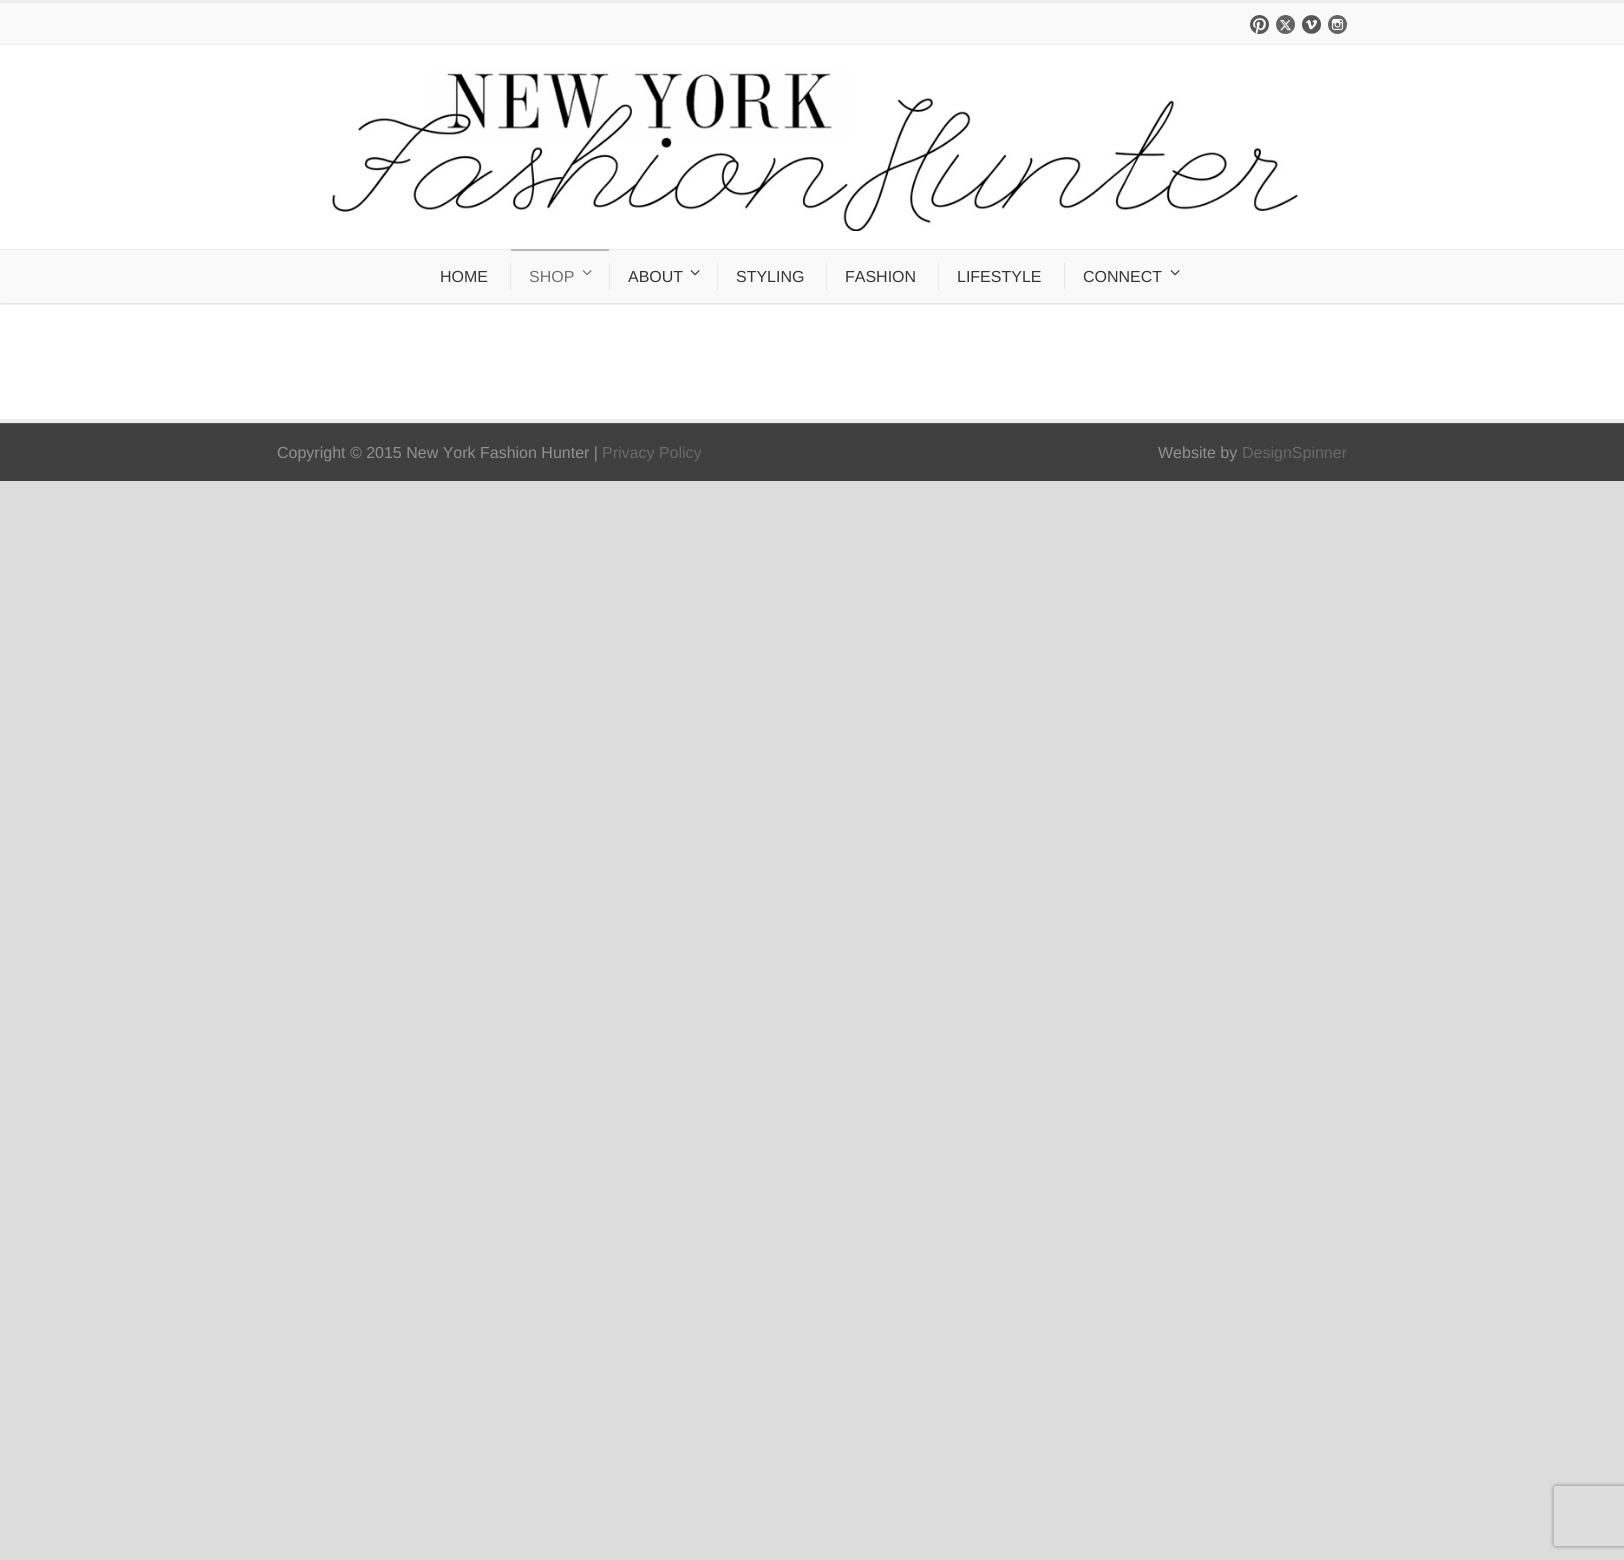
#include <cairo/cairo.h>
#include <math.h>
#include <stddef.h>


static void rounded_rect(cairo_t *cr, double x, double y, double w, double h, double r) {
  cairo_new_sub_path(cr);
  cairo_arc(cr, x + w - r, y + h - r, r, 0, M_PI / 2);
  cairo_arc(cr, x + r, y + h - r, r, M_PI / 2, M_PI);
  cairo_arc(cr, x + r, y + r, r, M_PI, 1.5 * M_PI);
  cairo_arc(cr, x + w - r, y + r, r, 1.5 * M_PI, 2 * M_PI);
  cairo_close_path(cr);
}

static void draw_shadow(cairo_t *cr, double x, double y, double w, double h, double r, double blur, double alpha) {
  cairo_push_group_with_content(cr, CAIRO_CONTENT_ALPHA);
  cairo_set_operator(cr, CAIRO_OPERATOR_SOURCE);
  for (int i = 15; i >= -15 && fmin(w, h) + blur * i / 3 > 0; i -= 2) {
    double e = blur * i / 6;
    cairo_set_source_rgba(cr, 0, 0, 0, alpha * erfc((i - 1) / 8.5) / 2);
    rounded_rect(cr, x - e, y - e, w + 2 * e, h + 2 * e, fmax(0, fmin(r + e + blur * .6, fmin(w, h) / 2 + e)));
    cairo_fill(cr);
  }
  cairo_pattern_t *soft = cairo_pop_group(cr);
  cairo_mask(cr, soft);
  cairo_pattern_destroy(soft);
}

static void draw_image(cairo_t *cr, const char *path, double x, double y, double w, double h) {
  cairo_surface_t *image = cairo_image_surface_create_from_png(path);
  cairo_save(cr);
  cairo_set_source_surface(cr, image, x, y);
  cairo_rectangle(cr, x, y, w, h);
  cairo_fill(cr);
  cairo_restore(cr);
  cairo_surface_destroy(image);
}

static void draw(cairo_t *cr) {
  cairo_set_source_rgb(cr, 221 / 255.0, 221 / 255.0, 221 / 255.0);
  cairo_paint(cr);
  cairo_set_source_rgb(cr, 1, 1, 1);
  cairo_rectangle(cr, 0, 45, 1624, 374);
  cairo_fill(cr);
  cairo_set_source_rgb(cr, 249 / 255.0, 249 / 255.0, 249 / 255.0);
  cairo_rectangle(cr, 0, 3, 1624, 41);
  cairo_fill(cr);
  cairo_set_source_rgb(cr, 236 / 255.0, 236 / 255.0, 236 / 255.0);
  cairo_rectangle(cr, 0, 0, 1624, 3);
  cairo_fill(cr);
  cairo_rectangle(cr, 0, 44, 1624, 1);
  cairo_fill(cr);
  draw_image(cr, "images/1.png", 1250, 15, 19, 19);
  draw_image(cr, "images/2.png", 1276, 15, 19, 19);
  draw_image(cr, "images/3.png", 1302, 15, 19, 19);
  draw_image(cr, "images/4.png", 1328, 15, 19, 19);
  draw_image(cr, "images/5.png", 332, 69, 967, 162);
  cairo_set_source_rgb(cr, 0, 0, 0);
  draw_shadow(cr, 0, 250, 1624, 54, 0, 1, 0.15);
  cairo_set_source_rgb(cr, 249 / 255.0, 249 / 255.0, 249 / 255.0);
  cairo_rectangle(cr, 0, 250, 1624, 53);
  cairo_fill(cr);
  cairo_set_source_rgb(cr, 236 / 255.0, 236 / 255.0, 236 / 255.0);
  cairo_rectangle(cr, 0, 249, 1624, 1);
  cairo_fill(cr);
  cairo_set_source_rgb(cr, 187 / 255.0, 187 / 255.0, 187 / 255.0);
  cairo_rectangle(cr, 511, 249, 98, 2);
  cairo_fill(cr);
  cairo_set_source_rgb(cr, 229 / 255.0, 229 / 255.0, 229 / 255.0);
  cairo_rectangle(cr, 510, 263, 1, 27);
  cairo_fill(cr);
  draw_image(cr, "images/6.png", 582, 270, 10, 6);
  cairo_rectangle(cr, 609, 263, 1, 27);
  cairo_fill(cr);
  draw_image(cr, "images/7.png", 690, 270, 10, 6);
  cairo_rectangle(cr, 717, 263, 1, 27);
  cairo_fill(cr);
  cairo_rectangle(cr, 826, 263, 1, 27);
  cairo_fill(cr);
  cairo_rectangle(cr, 938, 263, 1, 27);
  cairo_fill(cr);
  cairo_rectangle(cr, 1064, 263, 1, 27);
  cairo_fill(cr);
  draw_image(cr, "images/7.png", 1170, 270, 10, 6);
  cairo_set_source_rgb(cr, 236 / 255.0, 236 / 255.0, 236 / 255.0);
  cairo_rectangle(cr, 0, 419, 1624, 4);
  cairo_fill(cr);
  cairo_set_source_rgb(cr, 63 / 255.0, 63 / 255.0, 63 / 255.0);
  cairo_rectangle(cr, 0, 424, 1624, 57);
  cairo_fill(cr);
  cairo_set_source_rgb(cr, 85 / 255.0, 85 / 255.0, 85 / 255.0);
  cairo_rectangle(cr, 0, 423, 1624, 1);
  cairo_fill(cr);
  cairo_save(cr);
  cairo_set_fill_rule(cr, CAIRO_FILL_RULE_EVEN_ODD);
  cairo_new_path(cr);
  cairo_move_to(cr, 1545, 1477);
  cairo_line_to(cr, 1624, 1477);
  cairo_line_to(cr, 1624, 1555);
  cairo_line_to(cr, 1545, 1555);
  cairo_close_path(cr);
  cairo_move_to(cr, 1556, 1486);
  cairo_line_to(cr, 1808, 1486);
  cairo_curve_to(cr, 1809, 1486, 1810, 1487, 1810, 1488);
  cairo_line_to(cr, 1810, 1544);
  cairo_curve_to(cr, 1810, 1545, 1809, 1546, 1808, 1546);
  cairo_line_to(cr, 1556, 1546);
  cairo_curve_to(cr, 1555, 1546, 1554, 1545, 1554, 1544);
  cairo_line_to(cr, 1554, 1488);
  cairo_curve_to(cr, 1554, 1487, 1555, 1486, 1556, 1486);
  cairo_close_path(cr);
  cairo_clip(cr);
  cairo_set_source_rgb(cr, 128 / 255.0, 128 / 255.0, 128 / 255.0);
  draw_shadow(cr, 1554, 1486, 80, 60, 2, 2.5, 1);
  cairo_restore(cr);
  cairo_select_font_face(cr, "Liberation Sans", CAIRO_FONT_SLANT_NORMAL, CAIRO_FONT_WEIGHT_NORMAL);
  cairo_set_font_size(cr, 16);
  cairo_set_source_rgb(cr, 53 / 255.0, 53 / 255.0, 53 / 255.0);
  cairo_move_to(cr, 440, 282);
  cairo_show_text(cr, "HOME");
  cairo_set_source_rgb(cr, 112 / 255.0, 112 / 255.0, 112 / 255.0);
  cairo_move_to(cr, 529, 282);
  cairo_show_text(cr, "SHOP");
  cairo_set_source_rgb(cr, 53 / 255.0, 53 / 255.0, 53 / 255.0);
  cairo_move_to(cr, 628, 282);
  cairo_show_text(cr, "ABOUT");
  cairo_move_to(cr, 736, 282);
  cairo_show_text(cr, "STYLING");
  cairo_move_to(cr, 845, 282);
  cairo_show_text(cr, "FASHION");
  cairo_move_to(cr, 957, 282);
  cairo_show_text(cr, "LIFESTYLE");
  cairo_move_to(cr, 1083, 282);
  cairo_show_text(cr, "CONNECT");
  cairo_set_source_rgb(cr, 145 / 255.0, 145 / 255.0, 145 / 255.0);
  cairo_move_to(cr, 277, 458);
  cairo_show_text(cr, "Copyright © 2015 New York Fashion Hunter |");
  cairo_set_source_rgb(cr, 105 / 255.0, 105 / 255.0, 105 / 255.0);
  cairo_move_to(cr, 602, 458);
  cairo_show_text(cr, "Privacy Policy");
  cairo_set_source_rgb(cr, 145 / 255.0, 145 / 255.0, 145 / 255.0);
  cairo_move_to(cr, 1158, 458);
  cairo_show_text(cr, "Website by");
  cairo_set_source_rgb(cr, 105 / 255.0, 105 / 255.0, 105 / 255.0);
  cairo_move_to(cr, 1242, 458);
  cairo_show_text(cr, "DesignSpinner");
}

int main(void) {
  cairo_surface_t *surface = cairo_image_surface_create(CAIRO_FORMAT_RGB24, 1624, 1560);
  cairo_t *cr = cairo_create(surface);
  cairo_font_options_t *options = cairo_font_options_create();
  cairo_font_options_set_hint_metrics(options, CAIRO_HINT_METRICS_OFF);
  cairo_font_options_set_hint_style(options, CAIRO_HINT_STYLE_NONE);
  cairo_set_font_options(cr, options);
  cairo_set_miter_limit(cr, 4);
  draw(cr);
  cairo_surface_write_to_png(surface, "out.png");
  cairo_font_options_destroy(options);
  cairo_destroy(cr);
  cairo_surface_destroy(surface);
  return 0;
}
